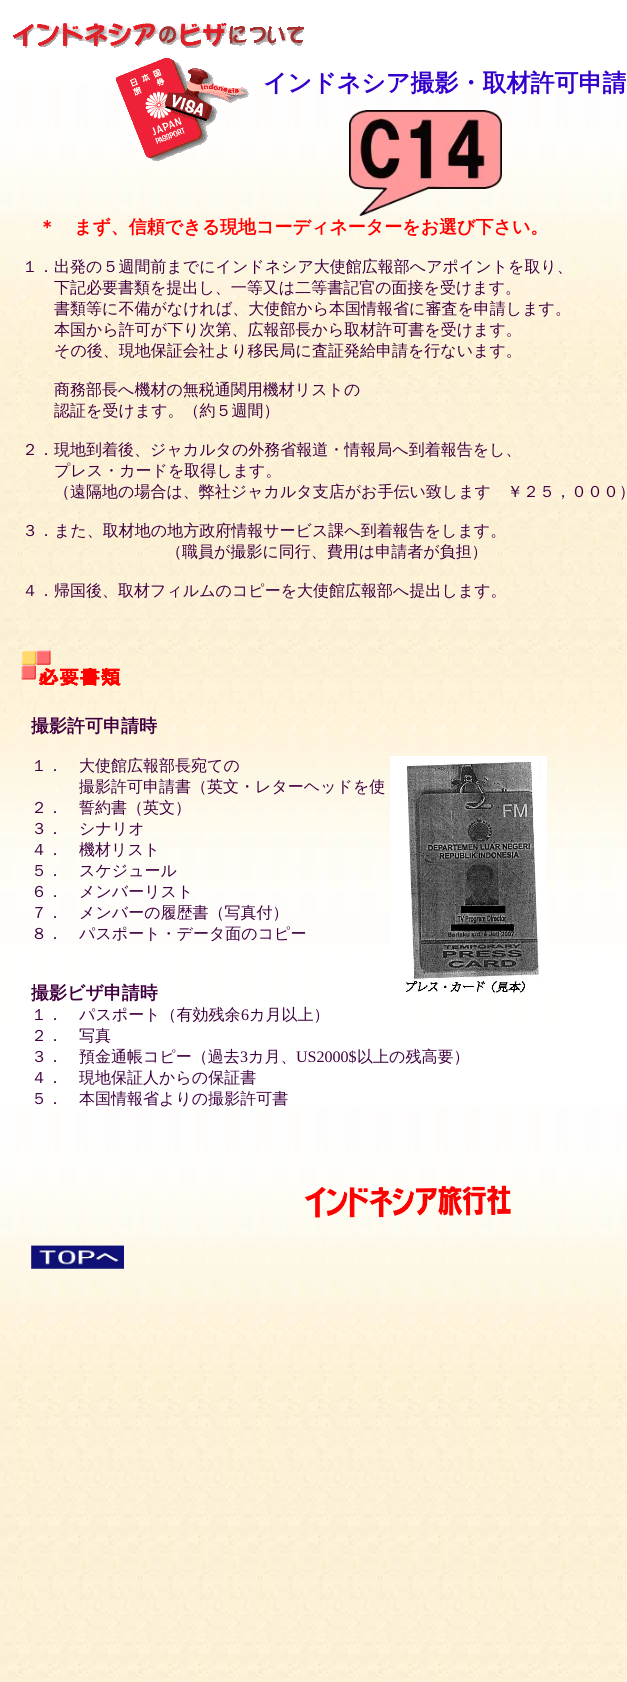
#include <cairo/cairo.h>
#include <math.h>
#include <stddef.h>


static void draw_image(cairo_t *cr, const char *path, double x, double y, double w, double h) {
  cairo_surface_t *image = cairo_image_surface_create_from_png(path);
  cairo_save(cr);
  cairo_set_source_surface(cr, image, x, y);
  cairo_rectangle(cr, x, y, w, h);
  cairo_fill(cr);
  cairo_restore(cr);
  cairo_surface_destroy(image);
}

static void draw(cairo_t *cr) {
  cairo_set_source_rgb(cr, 1, 1, 1);
  cairo_paint(cr);
  draw_image(cr, "images/1.png", 0, 0, 627, 1682);
  draw_image(cr, "images/3.png", 349, 110, 153, 106);
  draw_image(cr, "images/4.png", 21, 650, 100, 36);
  draw_image(cr, "images/5.png", 305, 1185, 206, 33);
  draw_image(cr, "images/6.png", 31, 1245, 93, 24);
  draw_image(cr, "images/7.png", 390, 756, 157, 237);
  cairo_select_font_face(cr, "WenQuanYi Zen Hei", CAIRO_FONT_SLANT_NORMAL, CAIRO_FONT_WEIGHT_BOLD);
  cairo_set_font_size(cr, 24);
  cairo_set_source_rgb(cr, 51 / 255.0, 0, 204 / 255.0);
  cairo_move_to(cr, 263, 91);
  cairo_show_text(cr, "インドネシア撮影・取材許可申請");
  draw_image(cr, "images/2.png", 13, 23, 291, 138);
  cairo_set_font_size(cr, 18);
  cairo_set_source_rgb(cr, 1, 0, 0);
  cairo_move_to(cr, 38, 233);
  cairo_show_text(cr, "＊　まず、信頼できる現地コーディネーターをお選び下さい。");
  cairo_select_font_face(cr, "WenQuanYi Zen Hei Medium", CAIRO_FONT_SLANT_NORMAL, CAIRO_FONT_WEIGHT_NORMAL);
  cairo_set_font_size(cr, 16);
  cairo_set_source_rgb(cr, 64 / 255.0, 0, 64 / 255.0);
  cairo_move_to(cr, 22, 272);
  cairo_show_text(cr, "１．出発の５週間前までにインドネシア大使館広報部へアポイントを取り、");
  cairo_move_to(cr, 54, 293);
  cairo_show_text(cr, "下記必要書類を提出し、一等又は二等書記官の面接を受けます。");
  cairo_move_to(cr, 54, 314);
  cairo_show_text(cr, "書類等に不備がなければ、大使館から本国情報省に審査を申請します。");
  cairo_move_to(cr, 54, 335);
  cairo_show_text(cr, "本国から許可が下り次第、広報部長から取材許可書を受けます。");
  cairo_move_to(cr, 54, 356);
  cairo_show_text(cr, "その後、現地保証会社より移民局に査証発給申請を行ないます。");
  cairo_move_to(cr, 54, 395);
  cairo_show_text(cr, "商務部長へ機材の無税通関用機材リストの");
  cairo_move_to(cr, 54, 416);
  cairo_show_text(cr, "認証を受けます。（約５週間）");
  cairo_move_to(cr, 22, 455);
  cairo_show_text(cr, "２．現地到着後、ジャカルタの外務省報道・情報局へ到着報告をし、");
  cairo_move_to(cr, 54, 476);
  cairo_show_text(cr, "プレス・カードを取得します。");
  cairo_move_to(cr, 54, 497);
  cairo_show_text(cr, "（遠隔地の場合は、弊社ジャカルタ支店がお手伝い致します　￥２５，０００）");
  cairo_move_to(cr, 22, 536);
  cairo_show_text(cr, "３．また、取材地の地方政府情報サービス課へ到着報告をします。");
  cairo_move_to(cr, 166, 557);
  cairo_show_text(cr, "（職員が撮影に同行、費用は申請者が負担）");
  cairo_move_to(cr, 22, 596);
  cairo_show_text(cr, "４．帰国後、取材フィルムのコピーを大使館広報部へ提出します。");
  cairo_select_font_face(cr, "WenQuanYi Zen Hei", CAIRO_FONT_SLANT_NORMAL, CAIRO_FONT_WEIGHT_BOLD);
  cairo_set_font_size(cr, 18);
  cairo_move_to(cr, 31, 732);
  cairo_show_text(cr, "撮影許可申請時");
  cairo_select_font_face(cr, "WenQuanYi Zen Hei Medium", CAIRO_FONT_SLANT_NORMAL, CAIRO_FONT_WEIGHT_NORMAL);
  cairo_set_font_size(cr, 16);
  cairo_move_to(cr, 31, 771);
  cairo_show_text(cr, "１．　大使館広報部長宛ての");
  cairo_move_to(cr, 79, 792);
  cairo_show_text(cr, "撮影許可申請書（英文・レターヘッドを使");
  cairo_move_to(cr, 31, 813);
  cairo_show_text(cr, "２．　誓約書（英文）");
  cairo_move_to(cr, 31, 834);
  cairo_show_text(cr, "３．　シナリオ");
  cairo_move_to(cr, 31, 855);
  cairo_show_text(cr, "４．　機材リスト");
  cairo_move_to(cr, 31, 876);
  cairo_show_text(cr, "５．　スケジュール");
  cairo_move_to(cr, 31, 897);
  cairo_show_text(cr, "６．　メンバーリスト");
  cairo_move_to(cr, 31, 918);
  cairo_show_text(cr, "７．　メンバーの履歴書（写真付）");
  cairo_move_to(cr, 31, 939);
  cairo_show_text(cr, "８．　パスポート・データ面のコピー");
  cairo_select_font_face(cr, "WenQuanYi Zen Hei", CAIRO_FONT_SLANT_NORMAL, CAIRO_FONT_WEIGHT_BOLD);
  cairo_set_font_size(cr, 18);
  cairo_move_to(cr, 31, 999);
  cairo_show_text(cr, "撮影ビザ申請時");
  cairo_select_font_face(cr, "WenQuanYi Zen Hei Medium", CAIRO_FONT_SLANT_NORMAL, CAIRO_FONT_WEIGHT_NORMAL);
  cairo_set_font_size(cr, 16);
  cairo_move_to(cr, 31, 1020);
  cairo_show_text(cr, "１．　パスポート（有効残余");
  cairo_select_font_face(cr, "Liberation Serif", CAIRO_FONT_SLANT_NORMAL, CAIRO_FONT_WEIGHT_NORMAL);
  cairo_move_to(cr, 241, 1020);
  cairo_show_text(cr, "6");
  cairo_select_font_face(cr, "WenQuanYi Zen Hei Medium", CAIRO_FONT_SLANT_NORMAL, CAIRO_FONT_WEIGHT_NORMAL);
  cairo_move_to(cr, 249, 1020);
  cairo_show_text(cr, "カ月以上）");
  cairo_move_to(cr, 31, 1041);
  cairo_show_text(cr, "２．　写真");
  cairo_move_to(cr, 31, 1062);
  cairo_show_text(cr, "３．　預金通帳コピー（過去");
  cairo_select_font_face(cr, "Liberation Serif", CAIRO_FONT_SLANT_NORMAL, CAIRO_FONT_WEIGHT_NORMAL);
  cairo_move_to(cr, 240, 1062);
  cairo_show_text(cr, "3");
  cairo_select_font_face(cr, "WenQuanYi Zen Hei Medium", CAIRO_FONT_SLANT_NORMAL, CAIRO_FONT_WEIGHT_NORMAL);
  cairo_move_to(cr, 248, 1062);
  cairo_show_text(cr, "カ月、");
  cairo_select_font_face(cr, "Liberation Serif", CAIRO_FONT_SLANT_NORMAL, CAIRO_FONT_WEIGHT_NORMAL);
  cairo_move_to(cr, 296, 1062);
  cairo_show_text(cr, "US2000$");
  cairo_select_font_face(cr, "WenQuanYi Zen Hei Medium", CAIRO_FONT_SLANT_NORMAL, CAIRO_FONT_WEIGHT_NORMAL);
  cairo_move_to(cr, 357, 1062);
  cairo_show_text(cr, "以上の残高要）");
  cairo_move_to(cr, 31, 1083);
  cairo_show_text(cr, "４．　現地保証人からの保証書");
  cairo_move_to(cr, 31, 1104);
  cairo_show_text(cr, "５．　本国情報省よりの撮影許可書");
}

int main(void) {
  cairo_surface_t *surface = cairo_image_surface_create(CAIRO_FORMAT_RGB24, 627, 1682);
  cairo_t *cr = cairo_create(surface);
  cairo_font_options_t *options = cairo_font_options_create();
  cairo_font_options_set_hint_metrics(options, CAIRO_HINT_METRICS_OFF);
  cairo_font_options_set_hint_style(options, CAIRO_HINT_STYLE_NONE);
  cairo_set_font_options(cr, options);
  cairo_set_miter_limit(cr, 4);
  draw(cr);
  cairo_surface_write_to_png(surface, "out.png");
  cairo_font_options_destroy(options);
  cairo_destroy(cr);
  cairo_surface_destroy(surface);
  return 0;
}
